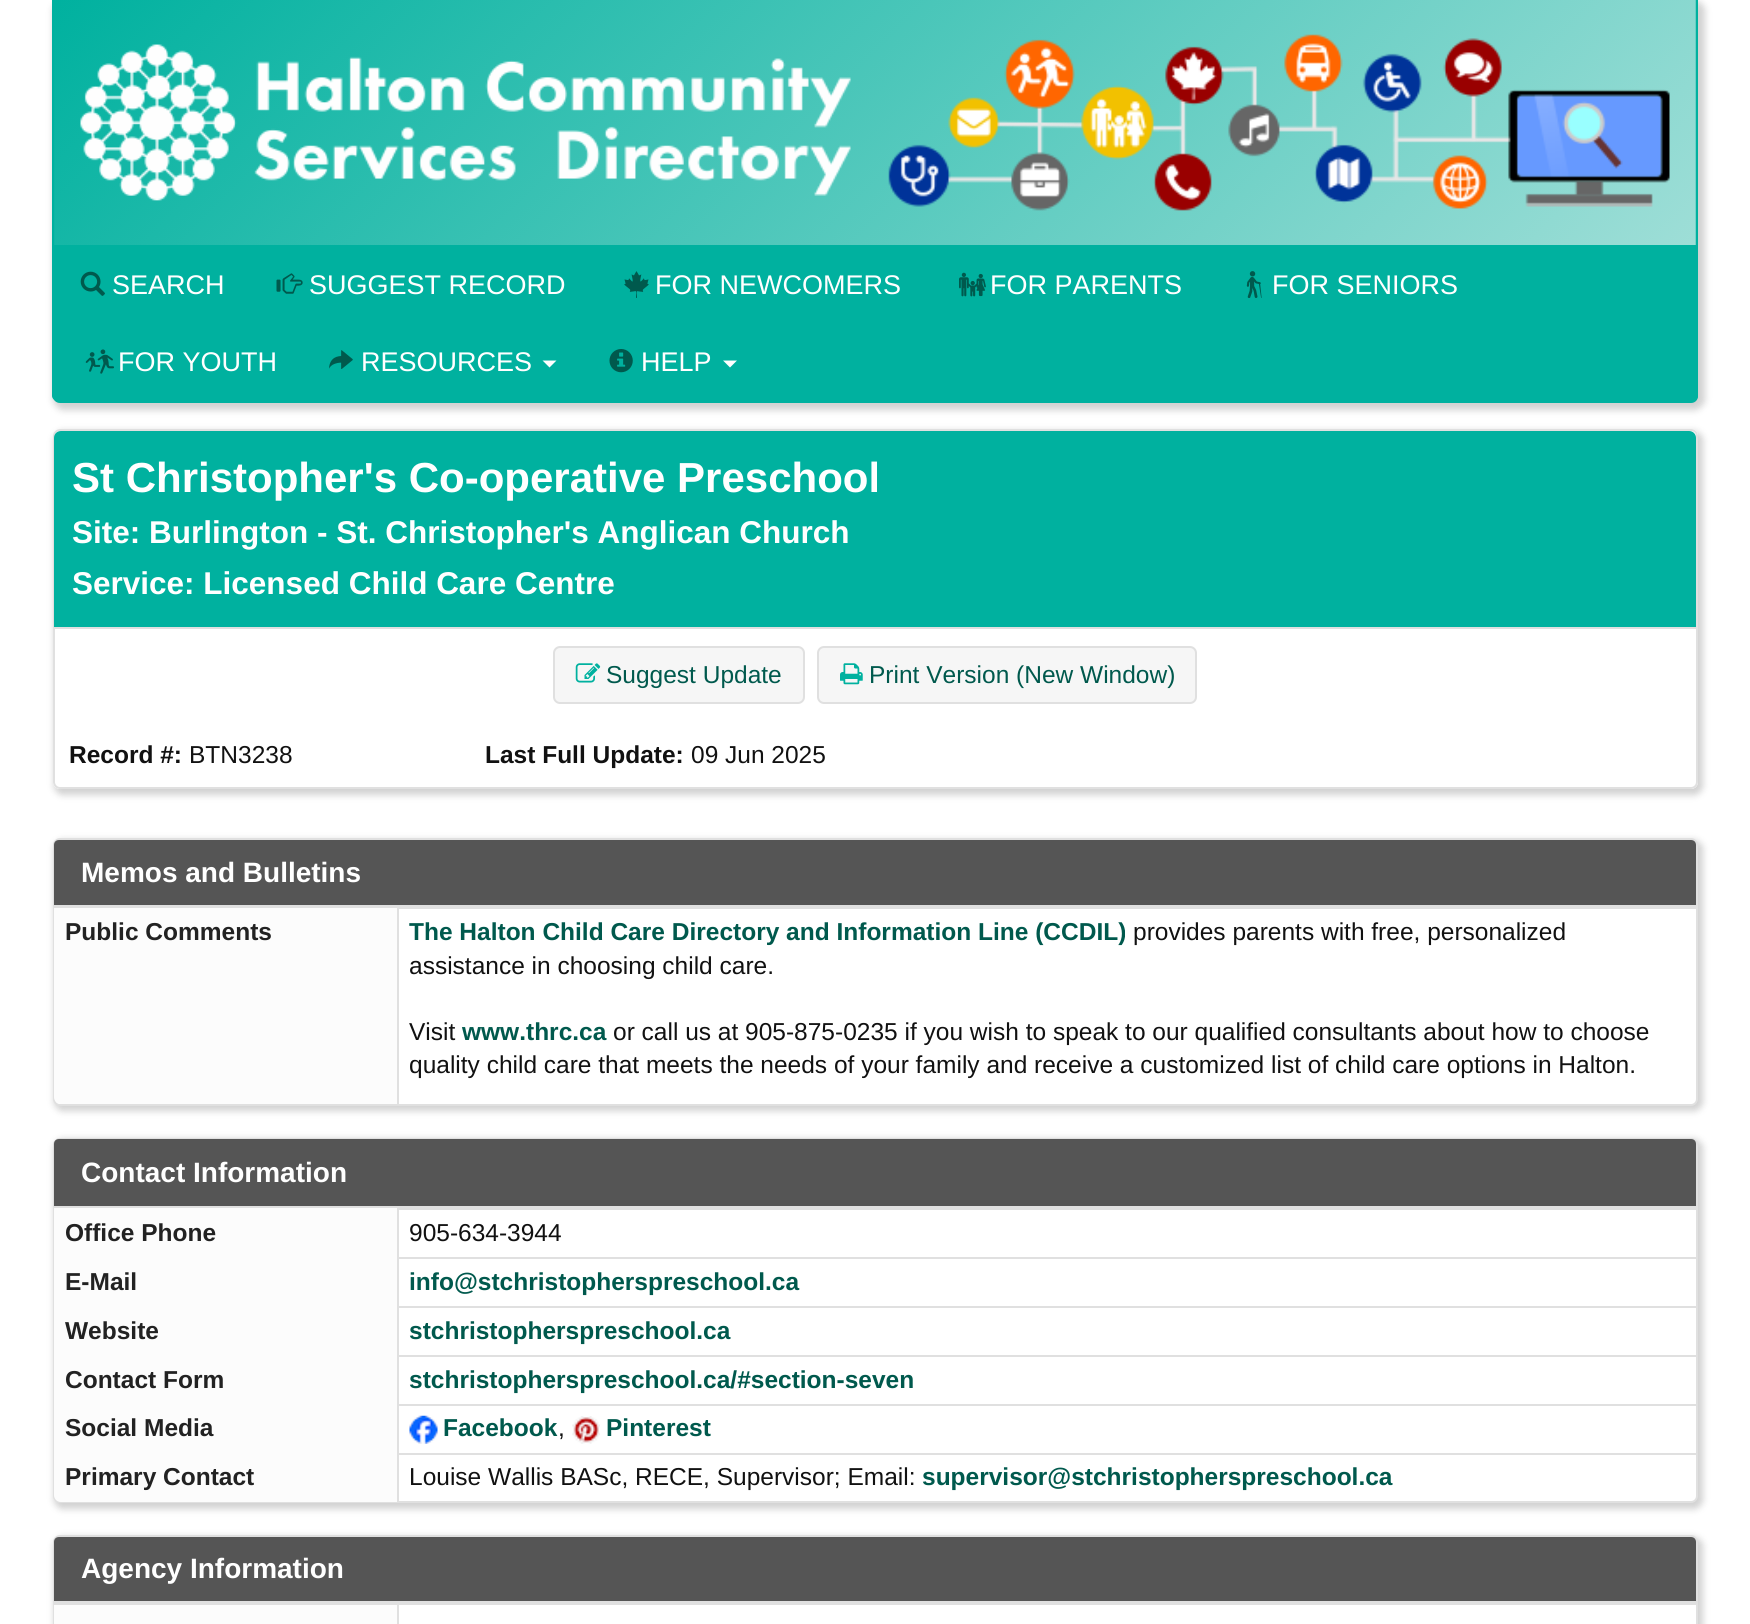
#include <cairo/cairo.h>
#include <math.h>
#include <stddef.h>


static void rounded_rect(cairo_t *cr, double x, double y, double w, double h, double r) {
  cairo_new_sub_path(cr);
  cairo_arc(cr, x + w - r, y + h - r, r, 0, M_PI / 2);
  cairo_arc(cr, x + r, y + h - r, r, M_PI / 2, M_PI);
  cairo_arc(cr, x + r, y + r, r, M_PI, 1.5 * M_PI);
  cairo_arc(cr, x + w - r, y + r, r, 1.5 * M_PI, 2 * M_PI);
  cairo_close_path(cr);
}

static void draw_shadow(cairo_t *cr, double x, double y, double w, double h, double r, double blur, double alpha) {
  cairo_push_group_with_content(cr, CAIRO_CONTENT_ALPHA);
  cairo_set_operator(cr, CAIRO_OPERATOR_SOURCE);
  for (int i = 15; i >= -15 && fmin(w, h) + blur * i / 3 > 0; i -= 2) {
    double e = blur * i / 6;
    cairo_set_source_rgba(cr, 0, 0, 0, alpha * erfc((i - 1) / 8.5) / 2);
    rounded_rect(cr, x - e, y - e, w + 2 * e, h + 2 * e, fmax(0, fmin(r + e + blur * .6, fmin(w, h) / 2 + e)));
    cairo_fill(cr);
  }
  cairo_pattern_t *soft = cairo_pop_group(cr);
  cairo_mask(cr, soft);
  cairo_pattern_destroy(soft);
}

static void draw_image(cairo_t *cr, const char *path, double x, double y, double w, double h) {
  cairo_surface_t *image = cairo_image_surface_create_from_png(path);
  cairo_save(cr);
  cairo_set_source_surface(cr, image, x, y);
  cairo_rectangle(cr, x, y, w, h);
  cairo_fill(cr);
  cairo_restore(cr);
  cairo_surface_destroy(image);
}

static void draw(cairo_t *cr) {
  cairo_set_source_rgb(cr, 1, 1, 1);
  cairo_paint(cr);
  cairo_set_source_rgb(cr, 102 / 255.0, 102 / 255.0, 102 / 255.0);
  draw_shadow(cr, 53, 0, 1652, 410, 11, 3.5, 0.3);
  cairo_set_source_rgb(cr, 0, 177 / 255.0, 159 / 255.0);
  cairo_new_path(cr);
  cairo_move_to(cr, 53, 0);
  cairo_line_to(cr, 1698, 0);
  cairo_line_to(cr, 1698, 396);
  cairo_curve_to(cr, 1698, 400, 1695, 403, 1691, 403);
  cairo_line_to(cr, 60, 403);
  cairo_curve_to(cr, 56, 403, 53, 400, 53, 396);
  cairo_close_path(cr);
  cairo_fill(cr);
  cairo_set_fill_rule(cr, CAIRO_FILL_RULE_EVEN_ODD);
  cairo_new_path(cr);
  cairo_move_to(cr, 52, 0);
  cairo_line_to(cr, 1698, 0);
  cairo_line_to(cr, 1698, 396);
  cairo_curve_to(cr, 1698, 399, 1694, 402, 1690, 402);
  cairo_line_to(cr, 60, 402);
  cairo_curve_to(cr, 56, 402, 52, 399, 52, 396);
  cairo_close_path(cr);
  cairo_move_to(cr, 54, 0);
  cairo_line_to(cr, 1696, 0);
  cairo_line_to(cr, 1696, 396);
  cairo_curve_to(cr, 1696, 398, 1693, 401, 1690, 401);
  cairo_line_to(cr, 60, 401);
  cairo_curve_to(cr, 57, 401, 54, 398, 54, 396);
  cairo_close_path(cr);
  cairo_fill(cr);
  draw_image(cr, "images/1.png", 54, 0, 1642, 245);
  draw_image(cr, "images/2.png", 80, 44, 771, 157);
  draw_image(cr, "images/3.png", 80, 271, 25, 25);
  draw_image(cr, "images/4.png", 276, 273, 27, 21);
  draw_image(cr, "images/5.png", 624, 271, 25, 27);
  draw_image(cr, "images/6.png", 959, 272, 27, 25);
  draw_image(cr, "images/7.png", 1246, 271, 16, 27);
  draw_image(cr, "images/8.png", 85, 349, 29, 25);
  draw_image(cr, "images/9.png", 329, 350, 24, 19);
  cairo_set_source_rgb(cr, 1, 1, 1);
  cairo_set_fill_rule(cr, CAIRO_FILL_RULE_WINDING);
  cairo_new_path(cr);
  cairo_move_to(cr, 542.5, 360.5);
  cairo_line_to(cr, 556.5, 360.5);
  cairo_line_to(cr, 549.5, 367.5);
  cairo_close_path(cr);
  cairo_fill(cr);
  draw_image(cr, "images/10.png", 609, 349, 24, 24);
  cairo_new_path(cr);
  cairo_move_to(cr, 723, 360.5);
  cairo_line_to(cr, 737, 360.5);
  cairo_line_to(cr, 730, 367.5);
  cairo_close_path(cr);
  cairo_fill(cr);
  cairo_save(cr);
  cairo_set_fill_rule(cr, CAIRO_FILL_RULE_EVEN_ODD);
  cairo_new_path(cr);
  cairo_move_to(cr, 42, 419);
  cairo_line_to(cr, 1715, 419);
  cairo_line_to(cr, 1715, 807);
  cairo_line_to(cr, 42, 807);
  cairo_close_path(cr);
  cairo_move_to(cr, 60, 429);
  cairo_line_to(cr, 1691, 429);
  cairo_curve_to(cr, 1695, 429, 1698, 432, 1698, 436);
  cairo_line_to(cr, 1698, 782);
  cairo_curve_to(cr, 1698, 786, 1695, 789, 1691, 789);
  cairo_line_to(cr, 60, 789);
  cairo_curve_to(cr, 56, 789, 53, 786, 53, 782);
  cairo_line_to(cr, 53, 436);
  cairo_curve_to(cr, 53, 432, 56, 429, 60, 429);
  cairo_close_path(cr);
  cairo_clip(cr);
  cairo_set_source_rgb(cr, 102 / 255.0, 102 / 255.0, 102 / 255.0);
  draw_shadow(cr, 54, 431, 1649, 364, 9, 3.5, 0.3);
  cairo_restore(cr);
  rounded_rect(cr, 54, 430, 1643, 358, 6);
  cairo_set_source_rgb(cr, 224 / 255.0, 224 / 255.0, 224 / 255.0);
  cairo_stroke(cr);
  cairo_set_source_rgb(cr, 0, 177 / 255.0, 159 / 255.0);
  cairo_new_path(cr);
  cairo_move_to(cr, 61, 431);
  cairo_line_to(cr, 1689, 431);
  cairo_curve_to(cr, 1693, 431, 1696, 434, 1696, 438);
  cairo_line_to(cr, 1696, 628);
  cairo_line_to(cr, 54, 628);
  cairo_line_to(cr, 54, 438);
  cairo_curve_to(cr, 54, 434, 57, 431, 61, 431);
  cairo_close_path(cr);
  cairo_fill(cr);
  cairo_set_source_rgb(cr, 224 / 255.0, 224 / 255.0, 224 / 255.0);
  cairo_rectangle(cr, 54, 627, 1642, 2);
  cairo_fill(cr);
  cairo_set_source_rgb(cr, 246 / 255.0, 246 / 255.0, 246 / 255.0);
  rounded_rect(cr, 554, 647, 250, 56, 6);
  cairo_fill_preserve(cr);
  cairo_set_source_rgb(cr, 224 / 255.0, 224 / 255.0, 224 / 255.0);
  cairo_stroke(cr);
  draw_image(cr, "images/11.png", 575, 663, 26, 20);
  cairo_set_source_rgb(cr, 246 / 255.0, 246 / 255.0, 246 / 255.0);
  rounded_rect(cr, 818, 647, 378, 56, 6);
  cairo_fill_preserve(cr);
  cairo_set_source_rgb(cr, 224 / 255.0, 224 / 255.0, 224 / 255.0);
  cairo_stroke(cr);
  draw_image(cr, "images/12.png", 840, 663, 23, 22);
  cairo_set_source_rgb(cr, 102 / 255.0, 102 / 255.0, 102 / 255.0);
  draw_shadow(cr, 54, 840, 1649, 271, 9, 3.5, 0.3);
  cairo_set_source_rgb(cr, 1, 1, 1);
  rounded_rect(cr, 54, 839, 1643, 266, 6);
  cairo_fill_preserve(cr);
  cairo_set_source_rgb(cr, 224 / 255.0, 224 / 255.0, 224 / 255.0);
  cairo_stroke(cr);
  cairo_set_source_rgb(cr, 85 / 255.0, 85 / 255.0, 85 / 255.0);
  cairo_new_path(cr);
  cairo_move_to(cr, 59, 840);
  cairo_line_to(cr, 1691, 840);
  cairo_curve_to(cr, 1694, 840, 1696, 842, 1696, 845);
  cairo_line_to(cr, 1696, 907);
  cairo_line_to(cr, 54, 907);
  cairo_line_to(cr, 54, 845);
  cairo_curve_to(cr, 54, 842, 56, 840, 59, 840);
  cairo_close_path(cr);
  cairo_fill(cr);
  cairo_set_source_rgb(cr, 224 / 255.0, 224 / 255.0, 224 / 255.0);
  cairo_rectangle(cr, 54, 905, 1642, 4);
  cairo_fill(cr);
  cairo_set_source_rgb(cr, 252 / 255.0, 252 / 255.0, 252 / 255.0);
  cairo_new_path(cr);
  cairo_move_to(cr, 54, 908);
  cairo_line_to(cr, 397, 908);
  cairo_line_to(cr, 397, 1104);
  cairo_line_to(cr, 61, 1104);
  cairo_curve_to(cr, 57, 1104, 54, 1101, 54, 1097);
  cairo_close_path(cr);
  cairo_fill(cr);
  cairo_set_source_rgb(cr, 224 / 255.0, 224 / 255.0, 224 / 255.0);
  cairo_rectangle(cr, 397, 907, 2, 199);
  cairo_fill(cr);
  cairo_set_source_rgb(cr, 102 / 255.0, 102 / 255.0, 102 / 255.0);
  draw_shadow(cr, 54, 1139, 1649, 370, 9, 3.5, 0.3);
  cairo_set_source_rgb(cr, 1, 1, 1);
  rounded_rect(cr, 54, 1139, 1643, 363, 6);
  cairo_fill_preserve(cr);
  cairo_set_source_rgb(cr, 224 / 255.0, 224 / 255.0, 224 / 255.0);
  cairo_stroke(cr);
  cairo_set_source_rgb(cr, 85 / 255.0, 85 / 255.0, 85 / 255.0);
  cairo_new_path(cr);
  cairo_move_to(cr, 59, 1139);
  cairo_line_to(cr, 1691, 1139);
  cairo_curve_to(cr, 1694, 1139, 1696, 1141, 1696, 1144);
  cairo_line_to(cr, 1696, 1208);
  cairo_line_to(cr, 54, 1208);
  cairo_line_to(cr, 54, 1144);
  cairo_curve_to(cr, 54, 1141, 56, 1139, 59, 1139);
  cairo_close_path(cr);
  cairo_fill(cr);
  cairo_set_source_rgb(cr, 224 / 255.0, 224 / 255.0, 224 / 255.0);
  cairo_rectangle(cr, 54, 1206, 1642, 2);
  cairo_fill(cr);
  cairo_rectangle(cr, 399, 1208, 1297, 2);
  cairo_fill(cr);
  cairo_set_source_rgb(cr, 252 / 255.0, 252 / 255.0, 252 / 255.0);
  cairo_rectangle(cr, 54, 1208, 343, 245);
  cairo_fill(cr);
  cairo_set_source_rgb(cr, 224 / 255.0, 224 / 255.0, 224 / 255.0);
  cairo_rectangle(cr, 397, 1257, 1301, 2);
  cairo_fill(cr);
  cairo_rectangle(cr, 397, 1306, 1301, 2);
  cairo_fill(cr);
  cairo_rectangle(cr, 397, 1355, 1301, 2);
  cairo_fill(cr);
  cairo_rectangle(cr, 397, 1404, 1301, 2);
  cairo_fill(cr);
  cairo_rectangle(cr, 397, 1453, 1301, 2);
  cairo_fill(cr);
  cairo_rectangle(cr, 397, 1453, 2, 49);
  cairo_fill(cr);
  cairo_rectangle(cr, 397, 1404, 2, 50);
  cairo_fill(cr);
  cairo_rectangle(cr, 397, 1355, 2, 50);
  cairo_fill(cr);
  cairo_rectangle(cr, 397, 1306, 2, 50);
  cairo_fill(cr);
  cairo_rectangle(cr, 397, 1208, 2, 99);
  cairo_fill(cr);
  draw_image(cr, "images/13.png", 409, 1415, 29, 29);
  draw_image(cr, "images/14.png", 572, 1416, 28, 28);
  cairo_set_source_rgb(cr, 252 / 255.0, 252 / 255.0, 252 / 255.0);
  cairo_new_path(cr);
  cairo_move_to(cr, 54, 1453);
  cairo_line_to(cr, 397, 1453);
  cairo_line_to(cr, 397, 1502);
  cairo_line_to(cr, 61, 1502);
  cairo_curve_to(cr, 57, 1502, 54, 1499, 54, 1495);
  cairo_close_path(cr);
  cairo_fill(cr);
  cairo_set_source_rgb(cr, 102 / 255.0, 102 / 255.0, 102 / 255.0);
  draw_shadow(cr, 54, 1537, 1649, 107, 9, 3.5, 0.3);
  cairo_set_source_rgb(cr, 1, 1, 1);
  rounded_rect(cr, 54, 1536, 1643, 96, 6);
  cairo_fill_preserve(cr);
  cairo_set_source_rgb(cr, 224 / 255.0, 224 / 255.0, 224 / 255.0);
  cairo_stroke(cr);
  cairo_set_source_rgb(cr, 85 / 255.0, 85 / 255.0, 85 / 255.0);
  cairo_new_path(cr);
  cairo_move_to(cr, 59, 1537);
  cairo_line_to(cr, 1691, 1537);
  cairo_curve_to(cr, 1694, 1537, 1696, 1539, 1696, 1542);
  cairo_line_to(cr, 1696, 1603);
  cairo_line_to(cr, 54, 1603);
  cairo_line_to(cr, 54, 1542);
  cairo_curve_to(cr, 54, 1539, 56, 1537, 59, 1537);
  cairo_close_path(cr);
  cairo_fill(cr);
  cairo_set_source_rgb(cr, 224 / 255.0, 224 / 255.0, 224 / 255.0);
  cairo_rectangle(cr, 54, 1601, 1642, 4);
  cairo_fill(cr);
  cairo_set_source_rgb(cr, 252 / 255.0, 252 / 255.0, 252 / 255.0);
  cairo_rectangle(cr, 54, 1605, 343, 19);
  cairo_fill(cr);
  cairo_set_source_rgb(cr, 224 / 255.0, 224 / 255.0, 224 / 255.0);
  cairo_rectangle(cr, 397, 1603, 2, 21);
  cairo_fill(cr);
  cairo_select_font_face(cr, "Liberation Sans", CAIRO_FONT_SLANT_NORMAL, CAIRO_FONT_WEIGHT_NORMAL);
  cairo_set_font_size(cr, 27);
  cairo_set_source_rgb(cr, 1, 1, 1);
  cairo_move_to(cr, 112, 294);
  cairo_show_text(cr, "SEARCH");
  cairo_move_to(cr, 309, 294);
  cairo_show_text(cr, "SUGGEST RECORD");
  cairo_move_to(cr, 655, 294);
  cairo_show_text(cr, "FOR NEWCOMERS");
  cairo_move_to(cr, 990, 294);
  cairo_show_text(cr, "FOR PARENTS");
  cairo_move_to(cr, 1272, 294);
  cairo_show_text(cr, "FOR SENIORS");
  cairo_move_to(cr, 118, 371);
  cairo_show_text(cr, "FOR YOUTH");
  cairo_move_to(cr, 361, 371);
  cairo_show_text(cr, "RESOURCES");
  cairo_move_to(cr, 641, 371);
  cairo_show_text(cr, "HELP");
  cairo_select_font_face(cr, "Liberation Sans", CAIRO_FONT_SLANT_NORMAL, CAIRO_FONT_WEIGHT_BOLD);
  cairo_set_font_size(cr, 42);
  cairo_move_to(cr, 72, 492);
  cairo_show_text(cr, "St Christopher's Co-operative Preschool");
  cairo_set_font_size(cr, 31.5);
  cairo_move_to(cr, 72, 543);
  cairo_show_text(cr, "Site: Burlington - St. Christopher's Anglican Church");
  cairo_move_to(cr, 72, 594);
  cairo_show_text(cr, "Service: Licensed Child Care Centre");
  cairo_select_font_face(cr, "Liberation Sans", CAIRO_FONT_SLANT_NORMAL, CAIRO_FONT_WEIGHT_NORMAL);
  cairo_set_font_size(cr, 24.5);
  cairo_set_source_rgb(cr, 0, 89 / 255.0, 77 / 255.0);
  cairo_move_to(cr, 606, 683);
  cairo_show_text(cr, "Suggest Update");
  cairo_move_to(cr, 869, 683);
  cairo_show_text(cr, "Print Version (New Window)");
  cairo_select_font_face(cr, "Liberation Sans", CAIRO_FONT_SLANT_NORMAL, CAIRO_FONT_WEIGHT_BOLD);
  cairo_set_source_rgb(cr, 17 / 255.0, 17 / 255.0, 17 / 255.0);
  cairo_move_to(cr, 69, 763);
  cairo_show_text(cr, "Record #:");
  cairo_select_font_face(cr, "Liberation Sans", CAIRO_FONT_SLANT_NORMAL, CAIRO_FONT_WEIGHT_NORMAL);
  cairo_move_to(cr, 189, 763);
  cairo_show_text(cr, "BTN3238");
  cairo_select_font_face(cr, "Liberation Sans", CAIRO_FONT_SLANT_NORMAL, CAIRO_FONT_WEIGHT_BOLD);
  cairo_move_to(cr, 485, 763);
  cairo_show_text(cr, "Last Full Update:");
  cairo_select_font_face(cr, "Liberation Sans", CAIRO_FONT_SLANT_NORMAL, CAIRO_FONT_WEIGHT_NORMAL);
  cairo_move_to(cr, 691, 763);
  cairo_show_text(cr, "09 Jun 2025");
  cairo_select_font_face(cr, "Liberation Sans", CAIRO_FONT_SLANT_NORMAL, CAIRO_FONT_WEIGHT_BOLD);
  cairo_set_font_size(cr, 28);
  cairo_set_source_rgb(cr, 1, 1, 1);
  cairo_move_to(cr, 81, 882);
  cairo_show_text(cr, "Memos and Bulletins");
  cairo_set_font_size(cr, 24.5);
  cairo_set_source_rgb(cr, 34 / 255.0, 34 / 255.0, 34 / 255.0);
  cairo_move_to(cr, 65, 940);
  cairo_show_text(cr, "Public Comments");
  cairo_set_source_rgb(cr, 0, 89 / 255.0, 77 / 255.0);
  cairo_move_to(cr, 409, 940);
  cairo_show_text(cr, "The Halton Child Care Directory and Information Line (CCDIL)");
  cairo_select_font_face(cr, "Liberation Sans", CAIRO_FONT_SLANT_NORMAL, CAIRO_FONT_WEIGHT_NORMAL);
  cairo_set_source_rgb(cr, 17 / 255.0, 17 / 255.0, 17 / 255.0);
  cairo_move_to(cr, 1133, 940);
  cairo_show_text(cr, "provides parents with free, personalized");
  cairo_move_to(cr, 409, 974);
  cairo_show_text(cr, "assistance in choosing child care.");
  cairo_move_to(cr, 409, 1040);
  cairo_show_text(cr, "Visit");
  cairo_select_font_face(cr, "Liberation Sans", CAIRO_FONT_SLANT_NORMAL, CAIRO_FONT_WEIGHT_BOLD);
  cairo_set_source_rgb(cr, 0, 89 / 255.0, 77 / 255.0);
  cairo_move_to(cr, 462, 1040);
  cairo_show_text(cr, "www.thrc.ca");
  cairo_select_font_face(cr, "Liberation Sans", CAIRO_FONT_SLANT_NORMAL, CAIRO_FONT_WEIGHT_NORMAL);
  cairo_set_source_rgb(cr, 17 / 255.0, 17 / 255.0, 17 / 255.0);
  cairo_move_to(cr, 613, 1040);
  cairo_show_text(cr, "or call us at 905-875-0235 if you wish to speak to our qualified consultants about how to choose");
  cairo_move_to(cr, 409, 1073);
  cairo_show_text(cr, "quality child care that meets the needs of your family and receive a customized list of child care options in Halton.");
  cairo_select_font_face(cr, "Liberation Sans", CAIRO_FONT_SLANT_NORMAL, CAIRO_FONT_WEIGHT_BOLD);
  cairo_set_font_size(cr, 28);
  cairo_set_source_rgb(cr, 1, 1, 1);
  cairo_move_to(cr, 81, 1182);
  cairo_show_text(cr, "Contact Information");
  cairo_set_font_size(cr, 24.5);
  cairo_set_source_rgb(cr, 34 / 255.0, 34 / 255.0, 34 / 255.0);
  cairo_move_to(cr, 65, 1241);
  cairo_show_text(cr, "Office Phone");
  cairo_select_font_face(cr, "Liberation Sans", CAIRO_FONT_SLANT_NORMAL, CAIRO_FONT_WEIGHT_NORMAL);
  cairo_set_source_rgb(cr, 17 / 255.0, 17 / 255.0, 17 / 255.0);
  cairo_move_to(cr, 409, 1241);
  cairo_show_text(cr, "905-634-3944");
  cairo_select_font_face(cr, "Liberation Sans", CAIRO_FONT_SLANT_NORMAL, CAIRO_FONT_WEIGHT_BOLD);
  cairo_set_source_rgb(cr, 34 / 255.0, 34 / 255.0, 34 / 255.0);
  cairo_move_to(cr, 65, 1290);
  cairo_show_text(cr, "E-Mail");
  cairo_set_source_rgb(cr, 0, 89 / 255.0, 77 / 255.0);
  cairo_move_to(cr, 409, 1290);
  cairo_show_text(cr, "info@stchristopherspreschool.ca");
  cairo_set_source_rgb(cr, 34 / 255.0, 34 / 255.0, 34 / 255.0);
  cairo_move_to(cr, 65, 1339);
  cairo_show_text(cr, "Website");
  cairo_set_source_rgb(cr, 0, 89 / 255.0, 77 / 255.0);
  cairo_move_to(cr, 409, 1339);
  cairo_show_text(cr, "stchristopherspreschool.ca");
  cairo_set_source_rgb(cr, 34 / 255.0, 34 / 255.0, 34 / 255.0);
  cairo_move_to(cr, 65, 1388);
  cairo_show_text(cr, "Contact Form");
  cairo_set_source_rgb(cr, 0, 89 / 255.0, 77 / 255.0);
  cairo_move_to(cr, 409, 1388);
  cairo_show_text(cr, "stchristopherspreschool.ca/#section-seven");
  cairo_set_source_rgb(cr, 34 / 255.0, 34 / 255.0, 34 / 255.0);
  cairo_move_to(cr, 65, 1436);
  cairo_show_text(cr, "Social Media");
  cairo_set_source_rgb(cr, 0, 89 / 255.0, 77 / 255.0);
  cairo_move_to(cr, 443, 1436);
  cairo_show_text(cr, "Facebook");
  cairo_select_font_face(cr, "Liberation Sans", CAIRO_FONT_SLANT_NORMAL, CAIRO_FONT_WEIGHT_NORMAL);
  cairo_set_source_rgb(cr, 17 / 255.0, 17 / 255.0, 17 / 255.0);
  cairo_move_to(cr, 558, 1436);
  cairo_show_text(cr, ",");
  cairo_select_font_face(cr, "Liberation Sans", CAIRO_FONT_SLANT_NORMAL, CAIRO_FONT_WEIGHT_BOLD);
  cairo_set_source_rgb(cr, 0, 89 / 255.0, 77 / 255.0);
  cairo_move_to(cr, 606, 1436);
  cairo_show_text(cr, "Pinterest");
  cairo_set_source_rgb(cr, 34 / 255.0, 34 / 255.0, 34 / 255.0);
  cairo_move_to(cr, 65, 1485);
  cairo_show_text(cr, "Primary Contact");
  cairo_select_font_face(cr, "Liberation Sans", CAIRO_FONT_SLANT_NORMAL, CAIRO_FONT_WEIGHT_NORMAL);
  cairo_set_source_rgb(cr, 17 / 255.0, 17 / 255.0, 17 / 255.0);
  cairo_move_to(cr, 409, 1485);
  cairo_show_text(cr, "Louise Wallis BASc, RECE, Supervisor; Email:");
  cairo_select_font_face(cr, "Liberation Sans", CAIRO_FONT_SLANT_NORMAL, CAIRO_FONT_WEIGHT_BOLD);
  cairo_set_source_rgb(cr, 0, 89 / 255.0, 77 / 255.0);
  cairo_move_to(cr, 922, 1485);
  cairo_show_text(cr, "supervisor@stchristopherspreschool.ca");
  cairo_set_font_size(cr, 28);
  cairo_set_source_rgb(cr, 1, 1, 1);
  cairo_move_to(cr, 81, 1578);
  cairo_show_text(cr, "Agency Information");
}

int main(void) {
  cairo_surface_t *surface = cairo_image_surface_create(CAIRO_FORMAT_RGB24, 1750, 1624);
  cairo_t *cr = cairo_create(surface);
  cairo_font_options_t *options = cairo_font_options_create();
  cairo_font_options_set_hint_metrics(options, CAIRO_HINT_METRICS_OFF);
  cairo_font_options_set_hint_style(options, CAIRO_HINT_STYLE_NONE);
  cairo_set_font_options(cr, options);
  cairo_set_miter_limit(cr, 4);
  draw(cr);
  cairo_surface_write_to_png(surface, "out.png");
  cairo_font_options_destroy(options);
  cairo_destroy(cr);
  cairo_surface_destroy(surface);
  return 0;
}
